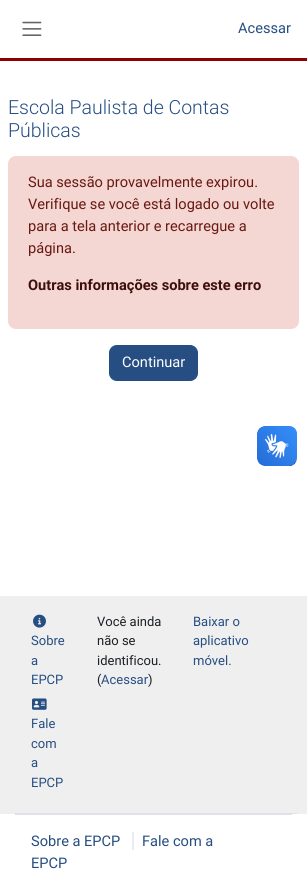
#include <cairo/cairo.h>
#include <math.h>
#include <stddef.h>


static void rounded_rect(cairo_t *cr, double x, double y, double w, double h, double r) {
  cairo_new_sub_path(cr);
  cairo_arc(cr, x + w - r, y + h - r, r, 0, M_PI / 2);
  cairo_arc(cr, x + r, y + h - r, r, M_PI / 2, M_PI);
  cairo_arc(cr, x + r, y + r, r, M_PI, 1.5 * M_PI);
  cairo_arc(cr, x + w - r, y + r, r, 1.5 * M_PI, 2 * M_PI);
  cairo_close_path(cr);
}

static void draw_image(cairo_t *cr, const char *path, double x, double y, double w, double h) {
  cairo_surface_t *image = cairo_image_surface_create_from_png(path);
  cairo_save(cr);
  cairo_set_source_surface(cr, image, x, y);
  cairo_rectangle(cr, x, y, w, h);
  cairo_fill(cr);
  cairo_restore(cr);
  cairo_surface_destroy(image);
}

static void draw(cairo_t *cr) {
  cairo_set_source_rgb(cr, 1, 1, 1);
  cairo_paint(cr);
  cairo_set_source_rgb(cr, 143 / 255.0, 0, 0);
  cairo_rectangle(cr, 0, 58, 307, 3);
  cairo_fill(cr);
  draw_image(cr, "images/1.png", 22, 21, 20, 15);
  cairo_set_source_rgb(cr, 244 / 255.0, 214 / 255.0, 210 / 255.0);
  rounded_rect(cr, 8, 156, 291, 173, 8);
  cairo_fill(cr);
  cairo_set_source_rgb(cr, 38 / 255.0, 78 / 255.0, 130 / 255.0);
  rounded_rect(cr, 109.5, 345.5, 88, 35, 7.5);
  cairo_fill_preserve(cr);
  cairo_set_line_width(cr, 1);
  cairo_stroke(cr);
  cairo_set_source_rgb(cr, 239 / 255.0, 239 / 255.0, 239 / 255.0);
  cairo_rectangle(cr, 0, 596, 307, 218);
  cairo_fill(cr);
  draw_image(cr, "images/2.png", 257, 426, 40, 40);
  draw_image(cr, "images/3.png", 257, 426, 40, 40);
  cairo_set_source_rgb(cr, 222 / 255.0, 226 / 255.0, 230 / 255.0);
  cairo_rectangle(cr, 15, 813, 282, 1);
  cairo_fill(cr);
  draw_image(cr, "images/4.png", 33, 614, 13, 14);
  draw_image(cr, "images/5.png", 32, 698, 15, 12);
  cairo_rectangle(cr, 15, 814, 277, 1);
  cairo_fill(cr);
  cairo_set_source_rgb(cr, 233 / 255.0, 236 / 255.0, 239 / 255.0);
  cairo_rectangle(cr, 132, 832, 2, 18);
  cairo_fill(cr);
  cairo_select_font_face(cr, "Roboto", CAIRO_FONT_SLANT_NORMAL, CAIRO_FONT_WEIGHT_NORMAL);
  cairo_set_font_size(cr, 14.6);
  cairo_set_source_rgb(cr, 38 / 255.0, 78 / 255.0, 130 / 255.0);
  cairo_move_to(cr, 238, 33);
  cairo_show_text(cr, "Acessar");
  cairo_select_font_face(cr, "Roboto Light", CAIRO_FONT_SLANT_NORMAL, CAIRO_FONT_WEIGHT_NORMAL);
  cairo_set_font_size(cr, 19.5);
  cairo_move_to(cr, 8, 114);
  cairo_show_text(cr, "Escola Paulista de Contas");
  cairo_move_to(cr, 8, 137);
  cairo_show_text(cr, "Públicas");
  cairo_select_font_face(cr, "Roboto", CAIRO_FONT_SLANT_NORMAL, CAIRO_FONT_WEIGHT_NORMAL);
  cairo_set_font_size(cr, 14.6);
  cairo_set_source_rgb(cr, 105 / 255.0, 25 / 255.0, 17 / 255.0);
  cairo_move_to(cr, 28, 187);
  cairo_show_text(cr, "Sua sessão provavelmente expirou.");
  cairo_move_to(cr, 28, 209);
  cairo_show_text(cr, "Verifique se você está logado ou volte");
  cairo_move_to(cr, 28, 231);
  cairo_show_text(cr, "para a tela anterior e recarregue a");
  cairo_move_to(cr, 28, 253);
  cairo_show_text(cr, "página.");
  cairo_select_font_face(cr, "Roboto", CAIRO_FONT_SLANT_NORMAL, CAIRO_FONT_WEIGHT_BOLD);
  cairo_set_source_rgb(cr, 61 / 255.0, 15 / 255.0, 10 / 255.0);
  cairo_move_to(cr, 28, 290);
  cairo_show_text(cr, "Outras informações sobre este erro");
  cairo_select_font_face(cr, "Roboto", CAIRO_FONT_SLANT_NORMAL, CAIRO_FONT_WEIGHT_NORMAL);
  cairo_set_source_rgb(cr, 1, 1, 1);
  cairo_move_to(cr, 122, 367);
  cairo_show_text(cr, "Continuar");
  cairo_set_font_size(cr, 13);
  cairo_set_source_rgb(cr, 38 / 255.0, 78 / 255.0, 130 / 255.0);
  cairo_move_to(cr, 31, 645);
  cairo_show_text(cr, "Sobre");
  cairo_move_to(cr, 31, 665);
  cairo_show_text(cr, "a");
  cairo_move_to(cr, 31, 684);
  cairo_show_text(cr, "EPCP");
  cairo_move_to(cr, 31, 728);
  cairo_show_text(cr, "Fale");
  cairo_move_to(cr, 31, 748);
  cairo_show_text(cr, "com");
  cairo_move_to(cr, 31, 767);
  cairo_show_text(cr, "a");
  cairo_move_to(cr, 31, 787);
  cairo_show_text(cr, "EPCP");
  cairo_set_source_rgb(cr, 29 / 255.0, 33 / 255.0, 37 / 255.0);
  cairo_move_to(cr, 97, 626);
  cairo_show_text(cr, "Você ainda");
  cairo_move_to(cr, 97, 645);
  cairo_show_text(cr, "não se");
  cairo_move_to(cr, 97, 665);
  cairo_show_text(cr, "identificou.");
  cairo_move_to(cr, 97, 684);
  cairo_show_text(cr, "(");
  cairo_set_source_rgb(cr, 38 / 255.0, 78 / 255.0, 130 / 255.0);
  cairo_move_to(cr, 101, 684);
  cairo_show_text(cr, "Acessar");
  cairo_set_source_rgb(cr, 29 / 255.0, 33 / 255.0, 37 / 255.0);
  cairo_move_to(cr, 148, 684);
  cairo_show_text(cr, ")");
  cairo_set_source_rgb(cr, 38 / 255.0, 78 / 255.0, 130 / 255.0);
  cairo_move_to(cr, 193, 626);
  cairo_show_text(cr, "Baixar o");
  cairo_move_to(cr, 193, 645);
  cairo_show_text(cr, "aplicativo");
  cairo_move_to(cr, 193, 665);
  cairo_show_text(cr, "móvel.");
  cairo_set_font_size(cr, 14.6);
  cairo_move_to(cr, 31, 846);
  cairo_show_text(cr, "Sobre a EPCP");
  cairo_move_to(cr, 142, 846);
  cairo_show_text(cr, "Fale com a");
  cairo_move_to(cr, 31, 868);
  cairo_show_text(cr, "EPCP");
}

int main(void) {
  cairo_surface_t *surface = cairo_image_surface_create(CAIRO_FORMAT_RGB24, 307, 891);
  cairo_t *cr = cairo_create(surface);
  cairo_font_options_t *options = cairo_font_options_create();
  cairo_font_options_set_hint_metrics(options, CAIRO_HINT_METRICS_OFF);
  cairo_font_options_set_hint_style(options, CAIRO_HINT_STYLE_NONE);
  cairo_set_font_options(cr, options);
  cairo_set_miter_limit(cr, 4);
  draw(cr);
  cairo_surface_write_to_png(surface, "out.png");
  cairo_font_options_destroy(options);
  cairo_destroy(cr);
  cairo_surface_destroy(surface);
  return 0;
}
